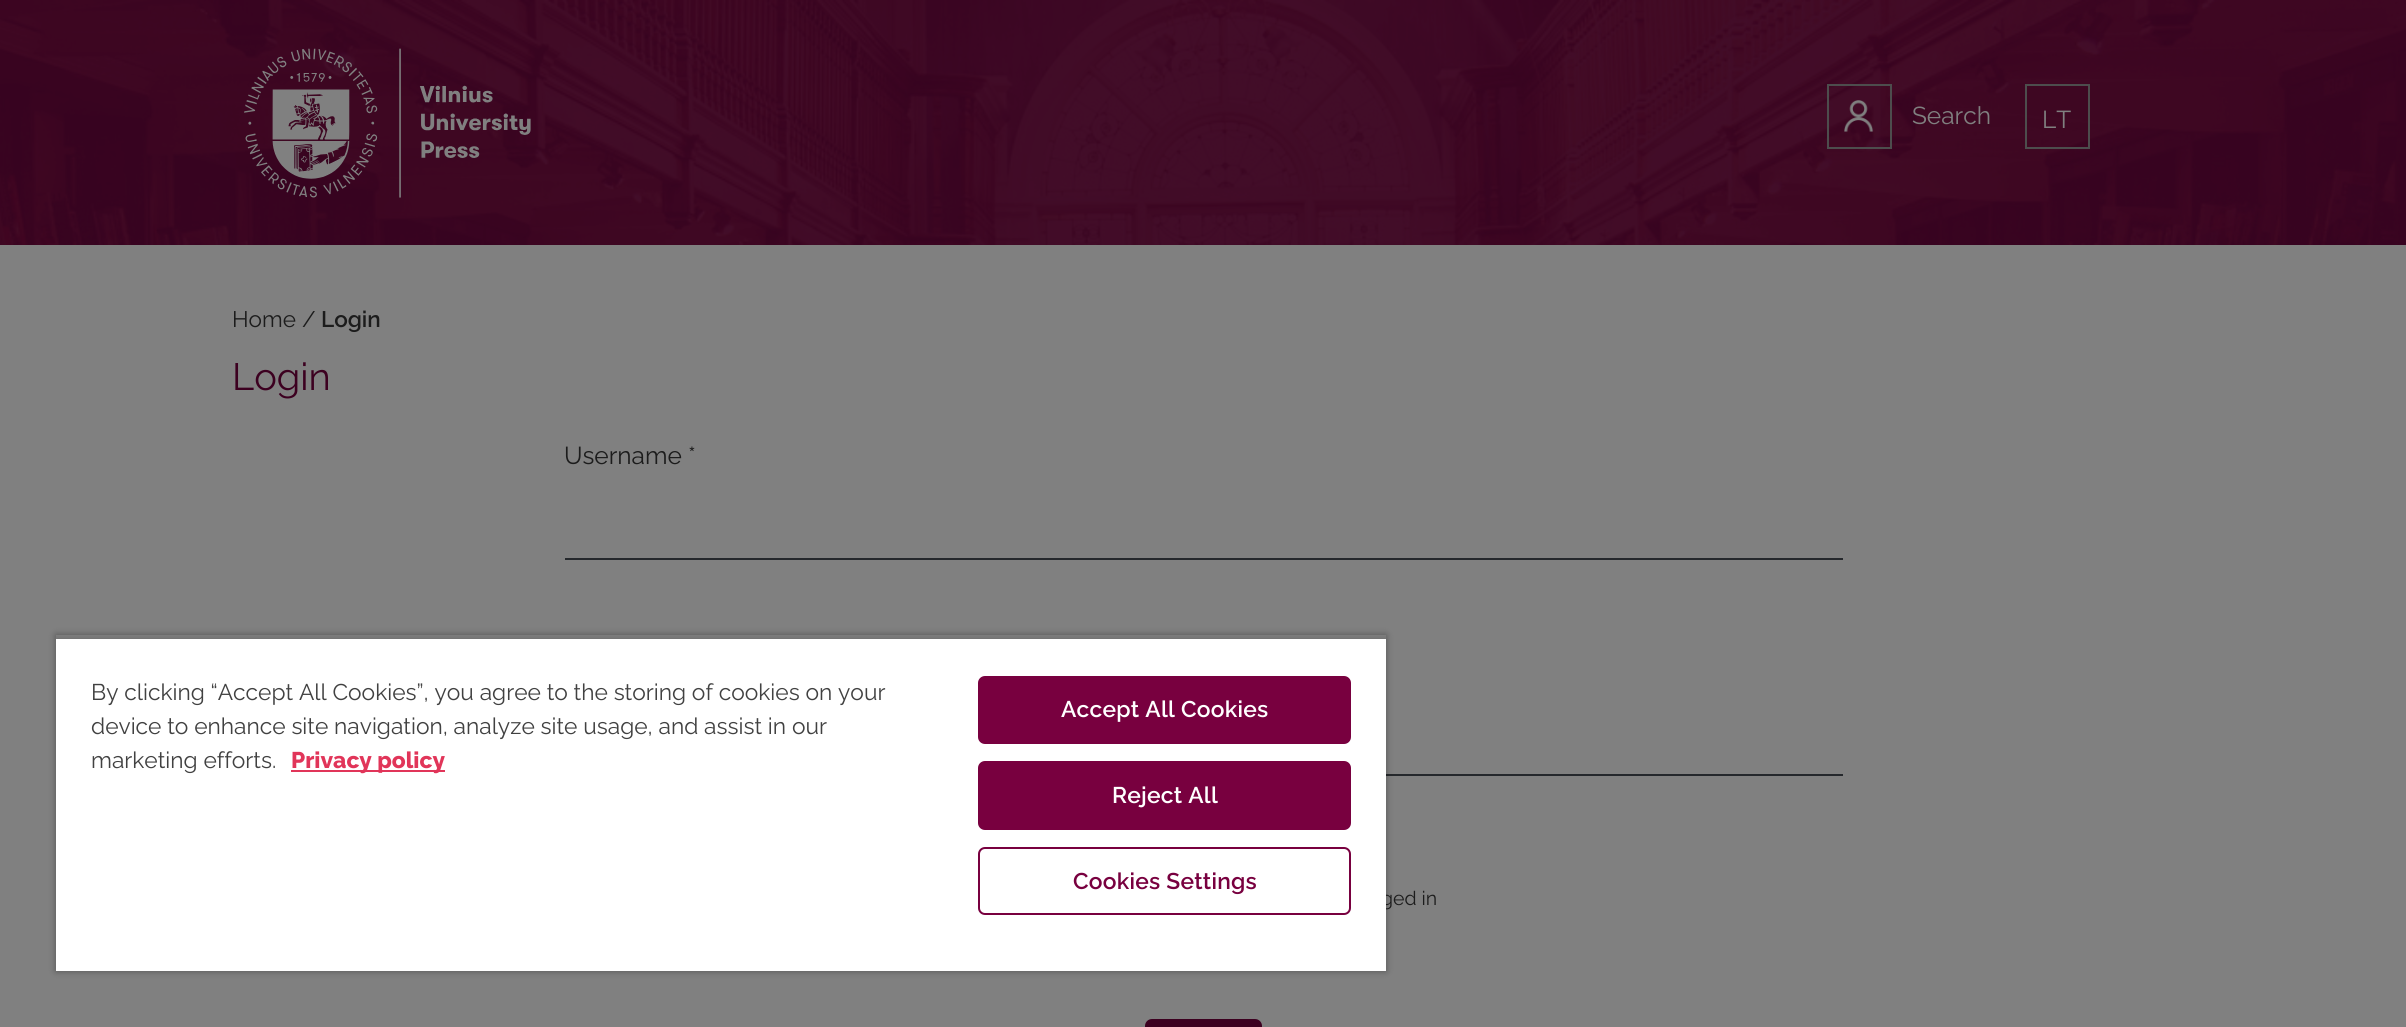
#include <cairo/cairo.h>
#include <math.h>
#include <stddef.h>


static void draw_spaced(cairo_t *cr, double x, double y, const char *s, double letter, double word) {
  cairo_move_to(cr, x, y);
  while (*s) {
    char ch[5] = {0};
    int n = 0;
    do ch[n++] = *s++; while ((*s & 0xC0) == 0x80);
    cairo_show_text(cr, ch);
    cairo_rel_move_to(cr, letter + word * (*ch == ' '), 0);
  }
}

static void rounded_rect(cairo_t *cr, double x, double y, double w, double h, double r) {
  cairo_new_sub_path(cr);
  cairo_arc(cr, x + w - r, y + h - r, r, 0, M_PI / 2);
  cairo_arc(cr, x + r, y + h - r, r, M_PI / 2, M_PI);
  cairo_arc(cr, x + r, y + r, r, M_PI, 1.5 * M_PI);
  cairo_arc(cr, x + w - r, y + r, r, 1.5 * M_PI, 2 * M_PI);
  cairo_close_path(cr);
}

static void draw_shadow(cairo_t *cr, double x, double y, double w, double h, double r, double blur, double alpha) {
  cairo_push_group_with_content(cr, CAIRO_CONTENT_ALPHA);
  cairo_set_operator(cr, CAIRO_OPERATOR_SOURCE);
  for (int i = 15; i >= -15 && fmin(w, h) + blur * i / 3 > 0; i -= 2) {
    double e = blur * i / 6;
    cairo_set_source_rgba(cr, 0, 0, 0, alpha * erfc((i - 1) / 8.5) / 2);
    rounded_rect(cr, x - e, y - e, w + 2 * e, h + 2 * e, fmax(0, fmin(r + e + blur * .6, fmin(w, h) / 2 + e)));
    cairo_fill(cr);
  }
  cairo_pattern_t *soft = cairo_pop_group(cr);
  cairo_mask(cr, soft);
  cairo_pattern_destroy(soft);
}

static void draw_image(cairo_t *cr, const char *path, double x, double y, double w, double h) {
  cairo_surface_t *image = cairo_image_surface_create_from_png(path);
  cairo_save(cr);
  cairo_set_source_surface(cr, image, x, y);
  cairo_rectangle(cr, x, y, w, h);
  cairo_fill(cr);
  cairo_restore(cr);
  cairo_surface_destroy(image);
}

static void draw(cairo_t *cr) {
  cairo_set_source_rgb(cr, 128 / 255.0, 128 / 255.0, 128 / 255.0);
  cairo_paint(cr);
  draw_image(cr, "images/1.png", 0, 0, 2406, 245);
  draw_image(cr, "images/2.png", 244, 48, 287, 150);
  draw_image(cr, "images/3.png", 1844, 100, 30, 32);
  cairo_rectangle(cr, 1828, 85, 63, 63);
  cairo_set_source_rgb(cr, 77 / 255.0, 77 / 255.0, 77 / 255.0);
  cairo_stroke(cr);
  cairo_rectangle(cr, 2026, 85, 63, 63);
  cairo_stroke(cr);
  cairo_set_source_rgb(cr, 37 / 255.0, 40 / 255.0, 44 / 255.0);
  cairo_rectangle(cr, 565, 558, 1278, 2);
  cairo_fill(cr);
  cairo_rectangle(cr, 1386, 774, 457, 2);
  cairo_fill(cr);
  cairo_set_source_rgb(cr, 60 / 255.0, 0, 32 / 255.0);
  rounded_rect(cr, 1146, 1020, 115, 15, 6);
  cairo_fill_preserve(cr);
  cairo_stroke(cr);
  cairo_save(cr);
  cairo_set_fill_rule(cr, CAIRO_FILL_RULE_EVEN_ODD);
  cairo_new_path(cr);
  cairo_move_to(cr, 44, 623);
  cairo_line_to(cr, 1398, 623);
  cairo_line_to(cr, 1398, 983);
  cairo_line_to(cr, 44, 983);
  cairo_close_path(cr);
  cairo_move_to(cr, 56, 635);
  cairo_line_to(cr, 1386, 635);
  cairo_line_to(cr, 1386, 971);
  cairo_line_to(cr, 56, 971);
  cairo_close_path(cr);
  cairo_clip(cr);
  cairo_set_source_rgb(cr, 0, 0, 0);
  draw_shadow(cr, 56, 635, 1330, 336, 0, 3.5, 0.35);
  cairo_restore(cr);
  cairo_save(cr);
  cairo_rectangle(cr, 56, 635, 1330, 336);
  cairo_clip(cr);
  cairo_set_source_rgb(cr, 0, 0, 0);
  draw_shadow(cr, 56, 639, 1330, 332, 0, 3.5, 0.2);
  cairo_restore(cr);
  cairo_select_font_face(cr, "Raleway", CAIRO_FONT_SLANT_NORMAL, CAIRO_FONT_WEIGHT_NORMAL);
  cairo_set_font_size(cr, 24.5);
  cairo_set_source_rgb(cr, 128 / 255.0, 128 / 255.0, 128 / 255.0);
  cairo_move_to(cr, 1912, 124);
  cairo_show_text(cr, "Search");
  cairo_move_to(cr, 2042, 128);
  cairo_show_text(cr, "LT");
  cairo_set_font_size(cr, 22.5);
  cairo_set_source_rgb(cr, 28 / 255.0, 28 / 255.0, 28 / 255.0);
  cairo_move_to(cr, 232, 327);
  cairo_show_text(cr, "Home");
  cairo_move_to(cr, 302, 327);
  cairo_show_text(cr, "/");
  cairo_select_font_face(cr, "Raleway SemiBold", CAIRO_FONT_SLANT_NORMAL, CAIRO_FONT_WEIGHT_NORMAL);
  cairo_move_to(cr, 321, 327);
  cairo_show_text(cr, "Login");
  cairo_select_font_face(cr, "Raleway", CAIRO_FONT_SLANT_NORMAL, CAIRO_FONT_WEIGHT_NORMAL);
  cairo_set_font_size(cr, 38);
  cairo_set_source_rgb(cr, 60 / 255.0, 0, 32 / 255.0);
  cairo_move_to(cr, 232, 390);
  cairo_show_text(cr, "Login");
  cairo_set_font_size(cr, 24.5);
  cairo_set_source_rgb(cr, 28 / 255.0, 28 / 255.0, 28 / 255.0);
  cairo_move_to(cr, 564, 464);
  cairo_show_text(cr, "Username *");
  cairo_set_font_size(cr, 19.5);
  cairo_move_to(cr, 1381, 905);
  cairo_show_text(cr, "ged in");
  cairo_set_source_rgb(cr, 1, 1, 1);
  cairo_rectangle(cr, 56, 639, 1330, 332);
  cairo_fill(cr);
  cairo_set_font_size(cr, 22.75);
  cairo_set_source_rgb(cr, 65 / 255.0, 65 / 255.0, 65 / 255.0);
  cairo_move_to(cr, 91, 700);
  cairo_show_text(cr, "By clicking “Accept All Cookies”, you agree to the storing of cookies on your");
  cairo_move_to(cr, 91, 734);
  cairo_show_text(cr, "device to enhance site navigation, analyze site usage, and assist in our");
  cairo_move_to(cr, 91, 768);
  cairo_show_text(cr, "marketing efforts.");
  cairo_set_source_rgb(cr, 225 / 255.0, 53 / 255.0, 89 / 255.0);
  cairo_rectangle(cr, 291, 770, 154, 2);
  cairo_fill(cr);
  cairo_select_font_face(cr, "Raleway ExtraBold", CAIRO_FONT_SLANT_NORMAL, CAIRO_FONT_WEIGHT_NORMAL);
  cairo_move_to(cr, 291, 768);
  cairo_show_text(cr, "Privacy policy");
  cairo_set_source_rgb(cr, 120 / 255.0, 0, 63 / 255.0);
  rounded_rect(cr, 979, 677, 371, 66, 6);
  cairo_fill_preserve(cr);
  cairo_stroke(cr);
  cairo_select_font_face(cr, "Raleway SemiBold", CAIRO_FONT_SLANT_NORMAL, CAIRO_FONT_WEIGHT_NORMAL);
  cairo_set_source_rgb(cr, 1, 1, 1);
  draw_spaced(cr, 1061, 717, "Accept All Cookies", 0.25, 0);
  cairo_set_source_rgb(cr, 120 / 255.0, 0, 63 / 255.0);
  rounded_rect(cr, 979, 762, 371, 67, 6);
  cairo_fill_preserve(cr);
  cairo_stroke(cr);
  cairo_set_source_rgb(cr, 1, 1, 1);
  draw_spaced(cr, 1112, 803, "Reject All", 0.25, 0);
  rounded_rect(cr, 979, 848, 371, 66, 6);
  cairo_set_source_rgb(cr, 120 / 255.0, 0, 63 / 255.0);
  cairo_stroke(cr);
  draw_spaced(cr, 1073, 889, "Cookies Settings", 0.25, 0);
}

int main(void) {
  cairo_surface_t *surface = cairo_image_surface_create(CAIRO_FORMAT_RGB24, 2406, 1027);
  cairo_t *cr = cairo_create(surface);
  cairo_font_options_t *options = cairo_font_options_create();
  cairo_font_options_set_hint_metrics(options, CAIRO_HINT_METRICS_OFF);
  cairo_font_options_set_hint_style(options, CAIRO_HINT_STYLE_NONE);
  cairo_set_font_options(cr, options);
  cairo_set_miter_limit(cr, 4);
  draw(cr);
  cairo_surface_write_to_png(surface, "out.png");
  cairo_font_options_destroy(options);
  cairo_destroy(cr);
  cairo_surface_destroy(surface);
  return 0;
}
